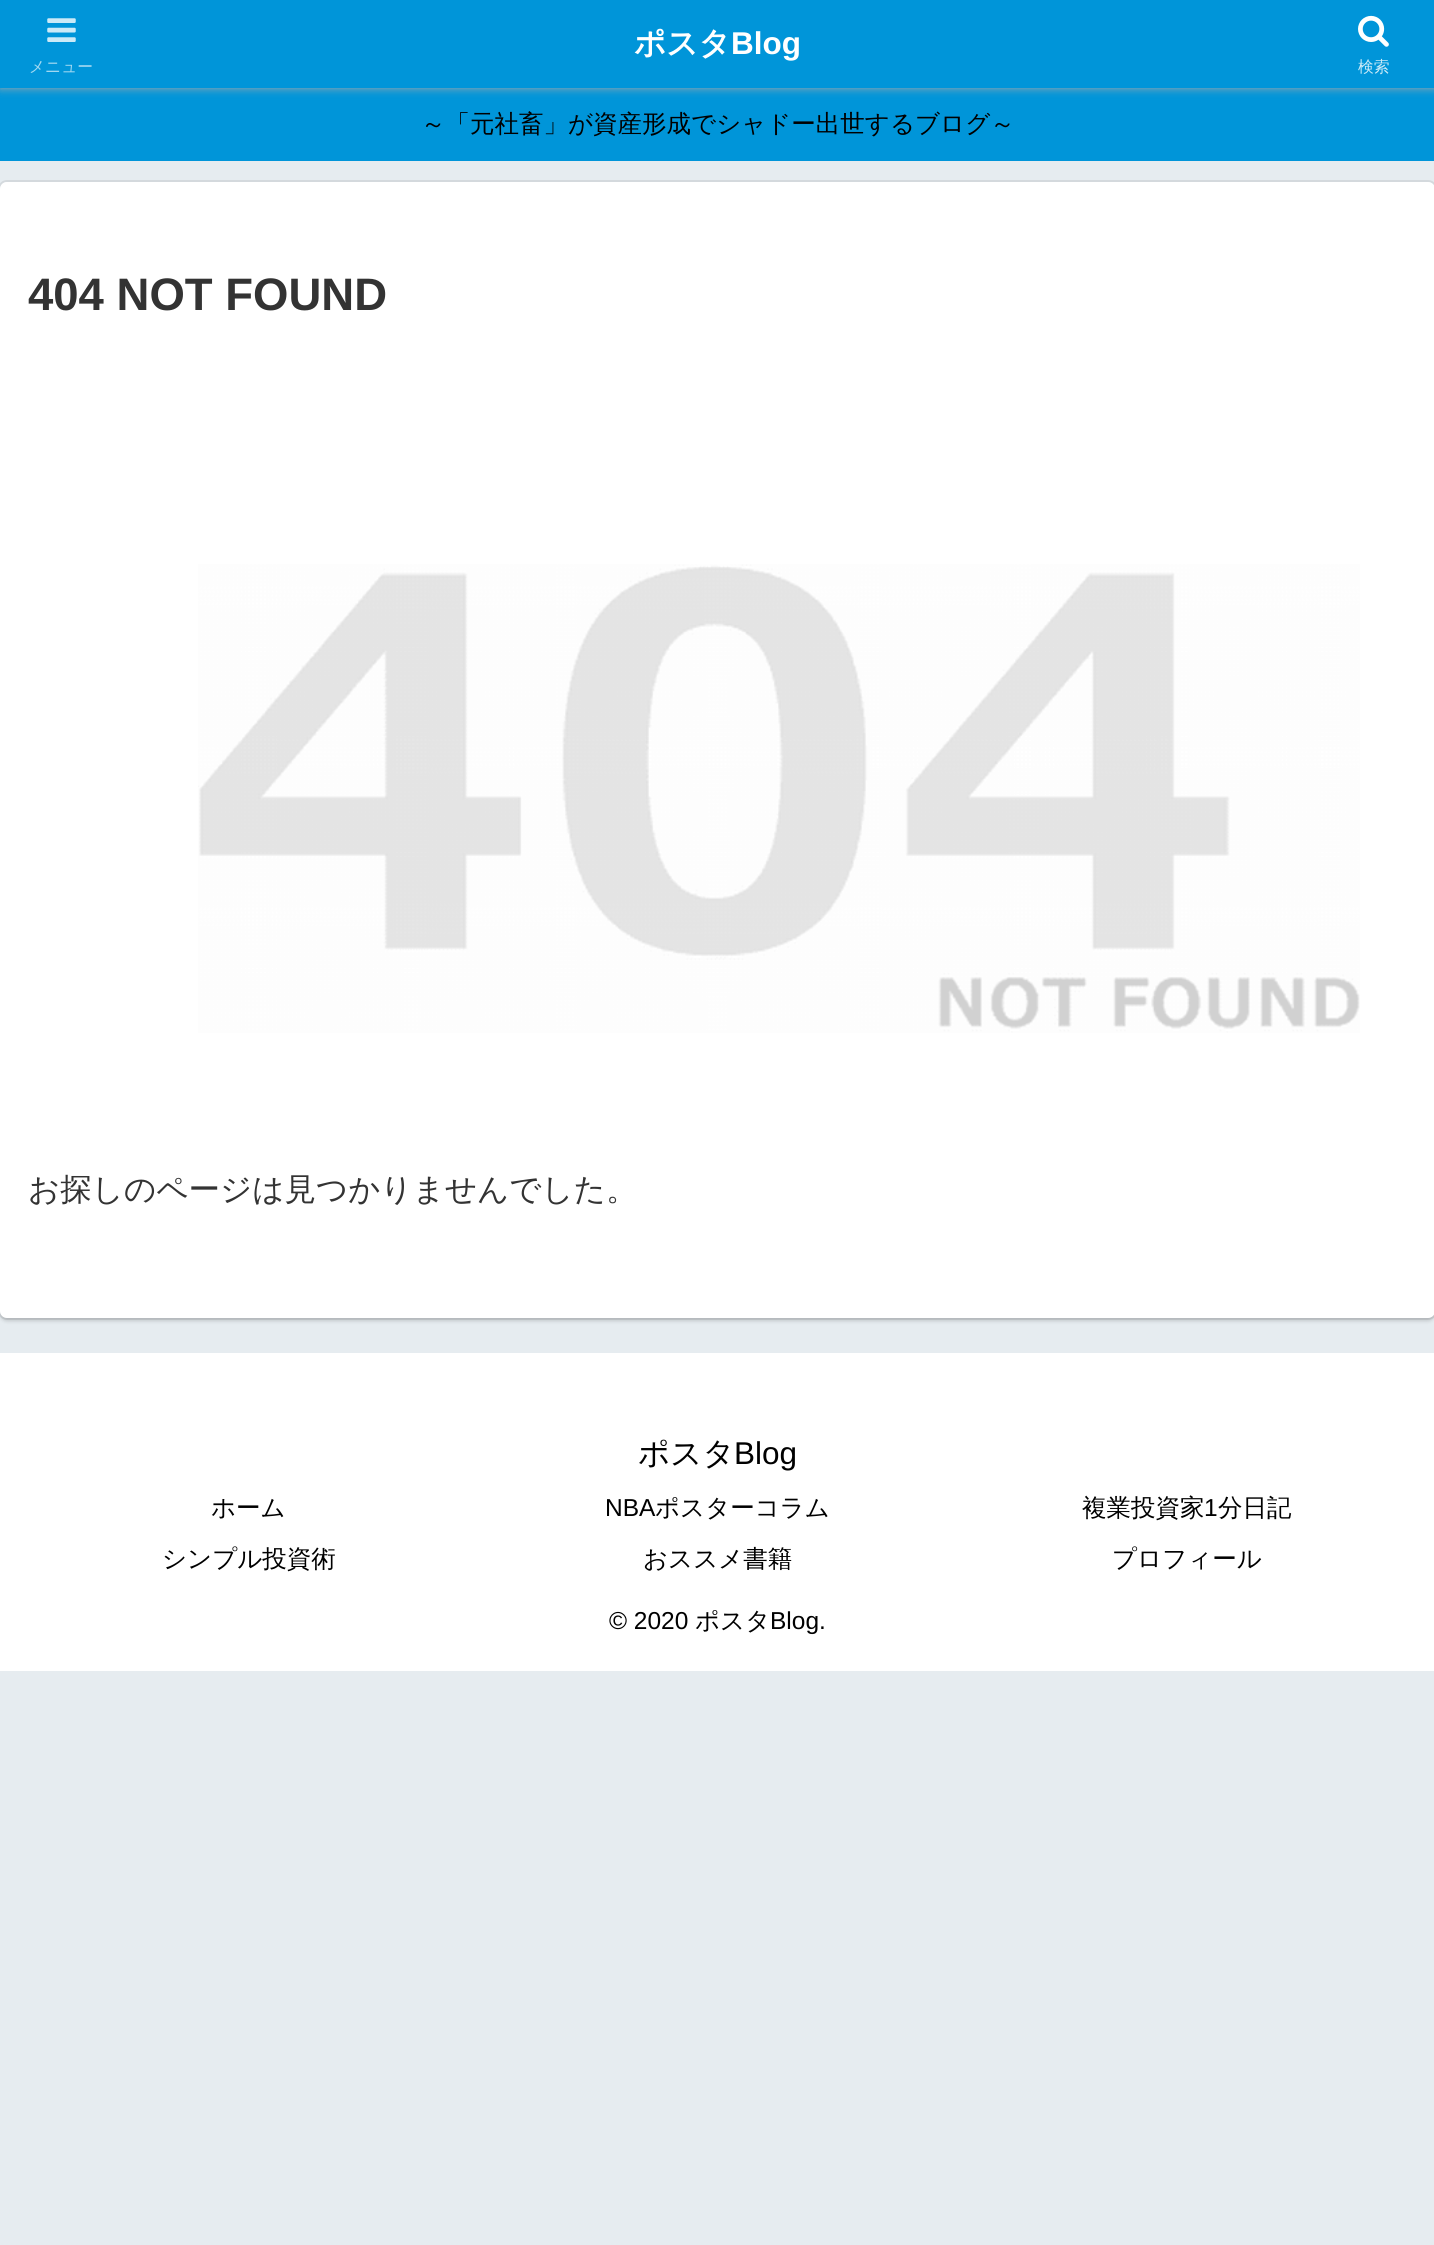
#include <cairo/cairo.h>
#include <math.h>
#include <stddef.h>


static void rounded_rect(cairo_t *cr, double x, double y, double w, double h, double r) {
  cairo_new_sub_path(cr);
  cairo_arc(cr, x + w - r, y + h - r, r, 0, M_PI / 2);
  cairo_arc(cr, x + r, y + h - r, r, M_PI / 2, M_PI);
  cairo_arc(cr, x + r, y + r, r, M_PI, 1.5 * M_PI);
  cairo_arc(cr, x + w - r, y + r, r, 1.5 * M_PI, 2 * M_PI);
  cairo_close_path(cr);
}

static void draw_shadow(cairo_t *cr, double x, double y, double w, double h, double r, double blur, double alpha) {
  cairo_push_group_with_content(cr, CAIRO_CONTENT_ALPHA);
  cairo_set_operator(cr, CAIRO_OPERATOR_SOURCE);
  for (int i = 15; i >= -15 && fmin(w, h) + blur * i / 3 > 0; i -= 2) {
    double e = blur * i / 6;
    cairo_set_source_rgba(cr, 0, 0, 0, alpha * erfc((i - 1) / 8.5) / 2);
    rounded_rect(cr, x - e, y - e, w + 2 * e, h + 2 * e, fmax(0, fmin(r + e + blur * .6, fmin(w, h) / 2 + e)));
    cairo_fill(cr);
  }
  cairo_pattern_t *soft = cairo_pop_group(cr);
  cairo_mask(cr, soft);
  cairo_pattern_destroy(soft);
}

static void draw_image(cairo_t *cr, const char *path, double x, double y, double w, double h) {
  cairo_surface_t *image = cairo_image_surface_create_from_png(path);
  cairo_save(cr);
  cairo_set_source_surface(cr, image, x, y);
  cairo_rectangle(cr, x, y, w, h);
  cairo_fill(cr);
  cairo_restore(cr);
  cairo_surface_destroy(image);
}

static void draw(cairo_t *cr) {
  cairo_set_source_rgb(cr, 230 / 255.0, 236 / 255.0, 240 / 255.0);
  cairo_paint(cr);
  cairo_set_source_rgb(cr, 0, 149 / 255.0, 217 / 255.0);
  cairo_rectangle(cr, 0, 88, 1434, 73);
  cairo_fill(cr);
  cairo_set_source_rgb(cr, 169 / 255.0, 169 / 255.0, 169 / 255.0);
  draw_shadow(cr, 0, 0, 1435, 88, 0, 4.5, 1);
  cairo_set_source_rgb(cr, 0, 149 / 255.0, 217 / 255.0);
  cairo_rectangle(cr, 0, 0, 1434, 88);
  cairo_fill(cr);
  draw_image(cr, "images/1.png", 47, 18, 29, 24);
  draw_image(cr, "images/2.png", 1358, 15, 31, 32);
  rounded_rect(cr, -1, 181, 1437, 1138, 8);
  cairo_set_source_rgb(cr, 212 / 255.0, 217 / 255.0, 221 / 255.0);
  cairo_stroke(cr);
  cairo_set_source_rgb(cr, 0, 0, 0);
  draw_shadow(cr, 0, 186, 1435, 1135, 7, 2, 0.16);
  cairo_set_source_rgb(cr, 1, 1, 1);
  rounded_rect(cr, 0, 182, 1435, 1136, 7);
  cairo_fill(cr);
  draw_image(cr, "images/3.png", 198, 564, 1162, 469);
  cairo_rectangle(cr, 0, 1353, 1434, 318);
  cairo_fill(cr);
  cairo_select_font_face(cr, "WenQuanYi Zen Hei", CAIRO_FONT_SLANT_NORMAL, CAIRO_FONT_WEIGHT_BOLD);
  cairo_set_font_size(cr, 31.5);
  cairo_move_to(cr, 634, 54);
  cairo_show_text(cr, "ポスタ");
  cairo_select_font_face(cr, "Liberation Sans", CAIRO_FONT_SLANT_NORMAL, CAIRO_FONT_WEIGHT_BOLD);
  cairo_move_to(cr, 731, 54);
  cairo_show_text(cr, "Blog");
  cairo_select_font_face(cr, "WenQuanYi Zen Hei Medium", CAIRO_FONT_SLANT_NORMAL, CAIRO_FONT_WEIGHT_NORMAL);
  cairo_set_font_size(cr, 15.75);
  cairo_set_source_rgb(cr, 163 / 255.0, 217 / 255.0, 241 / 255.0);
  cairo_move_to(cr, 29, 72);
  cairo_show_text(cr, "メニュー");
  cairo_set_source_rgb(cr, 204 / 255.0, 234 / 255.0, 247 / 255.0);
  cairo_move_to(cr, 1358, 72);
  cairo_show_text(cr, "検索");
  cairo_set_font_size(cr, 24.5);
  cairo_set_source_rgb(cr, 0, 0, 0);
  cairo_move_to(cr, 421, 132);
  cairo_show_text(cr, "～「元社畜」が資産形成でシャドー出世するブログ～");
  cairo_select_font_face(cr, "Liberation Sans", CAIRO_FONT_SLANT_NORMAL, CAIRO_FONT_WEIGHT_BOLD);
  cairo_set_font_size(cr, 45.5);
  cairo_set_source_rgb(cr, 51 / 255.0, 51 / 255.0, 51 / 255.0);
  cairo_move_to(cr, 28, 310);
  cairo_show_text(cr, "404 NOT FOUND");
  cairo_select_font_face(cr, "WenQuanYi Zen Hei Medium", CAIRO_FONT_SLANT_NORMAL, CAIRO_FONT_WEIGHT_NORMAL);
  cairo_set_font_size(cr, 31.5);
  cairo_move_to(cr, 28, 1200);
  cairo_show_text(cr, "お探しのページは見つかりませんでした。");
  cairo_set_source_rgb(cr, 0, 0, 0);
  cairo_move_to(cr, 638, 1464);
  cairo_show_text(cr, "ポスタ");
  cairo_select_font_face(cr, "Liberation Sans", CAIRO_FONT_SLANT_NORMAL, CAIRO_FONT_WEIGHT_NORMAL);
  cairo_move_to(cr, 734, 1464);
  cairo_show_text(cr, "Blog");
  cairo_select_font_face(cr, "WenQuanYi Zen Hei Medium", CAIRO_FONT_SLANT_NORMAL, CAIRO_FONT_WEIGHT_NORMAL);
  cairo_set_font_size(cr, 24.5);
  cairo_move_to(cr, 211, 1516);
  cairo_show_text(cr, "ホーム");
  cairo_select_font_face(cr, "Liberation Sans", CAIRO_FONT_SLANT_NORMAL, CAIRO_FONT_WEIGHT_NORMAL);
  cairo_move_to(cr, 605, 1516);
  cairo_show_text(cr, "NBA");
  cairo_select_font_face(cr, "WenQuanYi Zen Hei Medium", CAIRO_FONT_SLANT_NORMAL, CAIRO_FONT_WEIGHT_NORMAL);
  cairo_move_to(cr, 655, 1516);
  cairo_show_text(cr, "ポスターコラム");
  cairo_move_to(cr, 1082, 1516);
  cairo_show_text(cr, "複業投資家");
  cairo_select_font_face(cr, "Liberation Sans", CAIRO_FONT_SLANT_NORMAL, CAIRO_FONT_WEIGHT_NORMAL);
  cairo_move_to(cr, 1204, 1516);
  cairo_show_text(cr, "1");
  cairo_select_font_face(cr, "WenQuanYi Zen Hei Medium", CAIRO_FONT_SLANT_NORMAL, CAIRO_FONT_WEIGHT_NORMAL);
  cairo_move_to(cr, 1218, 1516);
  cairo_show_text(cr, "分日記");
  cairo_move_to(cr, 162, 1567);
  cairo_show_text(cr, "シンプル投資術");
  cairo_move_to(cr, 643, 1567);
  cairo_show_text(cr, "おススメ書籍");
  cairo_move_to(cr, 1112, 1567);
  cairo_show_text(cr, "プロフィール");
  cairo_select_font_face(cr, "Liberation Sans", CAIRO_FONT_SLANT_NORMAL, CAIRO_FONT_WEIGHT_NORMAL);
  cairo_move_to(cr, 609, 1629);
  cairo_show_text(cr, "© 2020");
  cairo_select_font_face(cr, "WenQuanYi Zen Hei Medium", CAIRO_FONT_SLANT_NORMAL, CAIRO_FONT_WEIGHT_NORMAL);
  cairo_move_to(cr, 695, 1629);
  cairo_show_text(cr, "ポスタ");
  cairo_select_font_face(cr, "Liberation Sans", CAIRO_FONT_SLANT_NORMAL, CAIRO_FONT_WEIGHT_NORMAL);
  cairo_move_to(cr, 770, 1629);
  cairo_show_text(cr, "Blog.");
}

int main(void) {
  cairo_surface_t *surface = cairo_image_surface_create(CAIRO_FORMAT_RGB24, 1434, 2245);
  cairo_t *cr = cairo_create(surface);
  cairo_font_options_t *options = cairo_font_options_create();
  cairo_font_options_set_hint_metrics(options, CAIRO_HINT_METRICS_OFF);
  cairo_font_options_set_hint_style(options, CAIRO_HINT_STYLE_NONE);
  cairo_set_font_options(cr, options);
  cairo_set_miter_limit(cr, 4);
  draw(cr);
  cairo_surface_write_to_png(surface, "out.png");
  cairo_font_options_destroy(options);
  cairo_destroy(cr);
  cairo_surface_destroy(surface);
  return 0;
}
